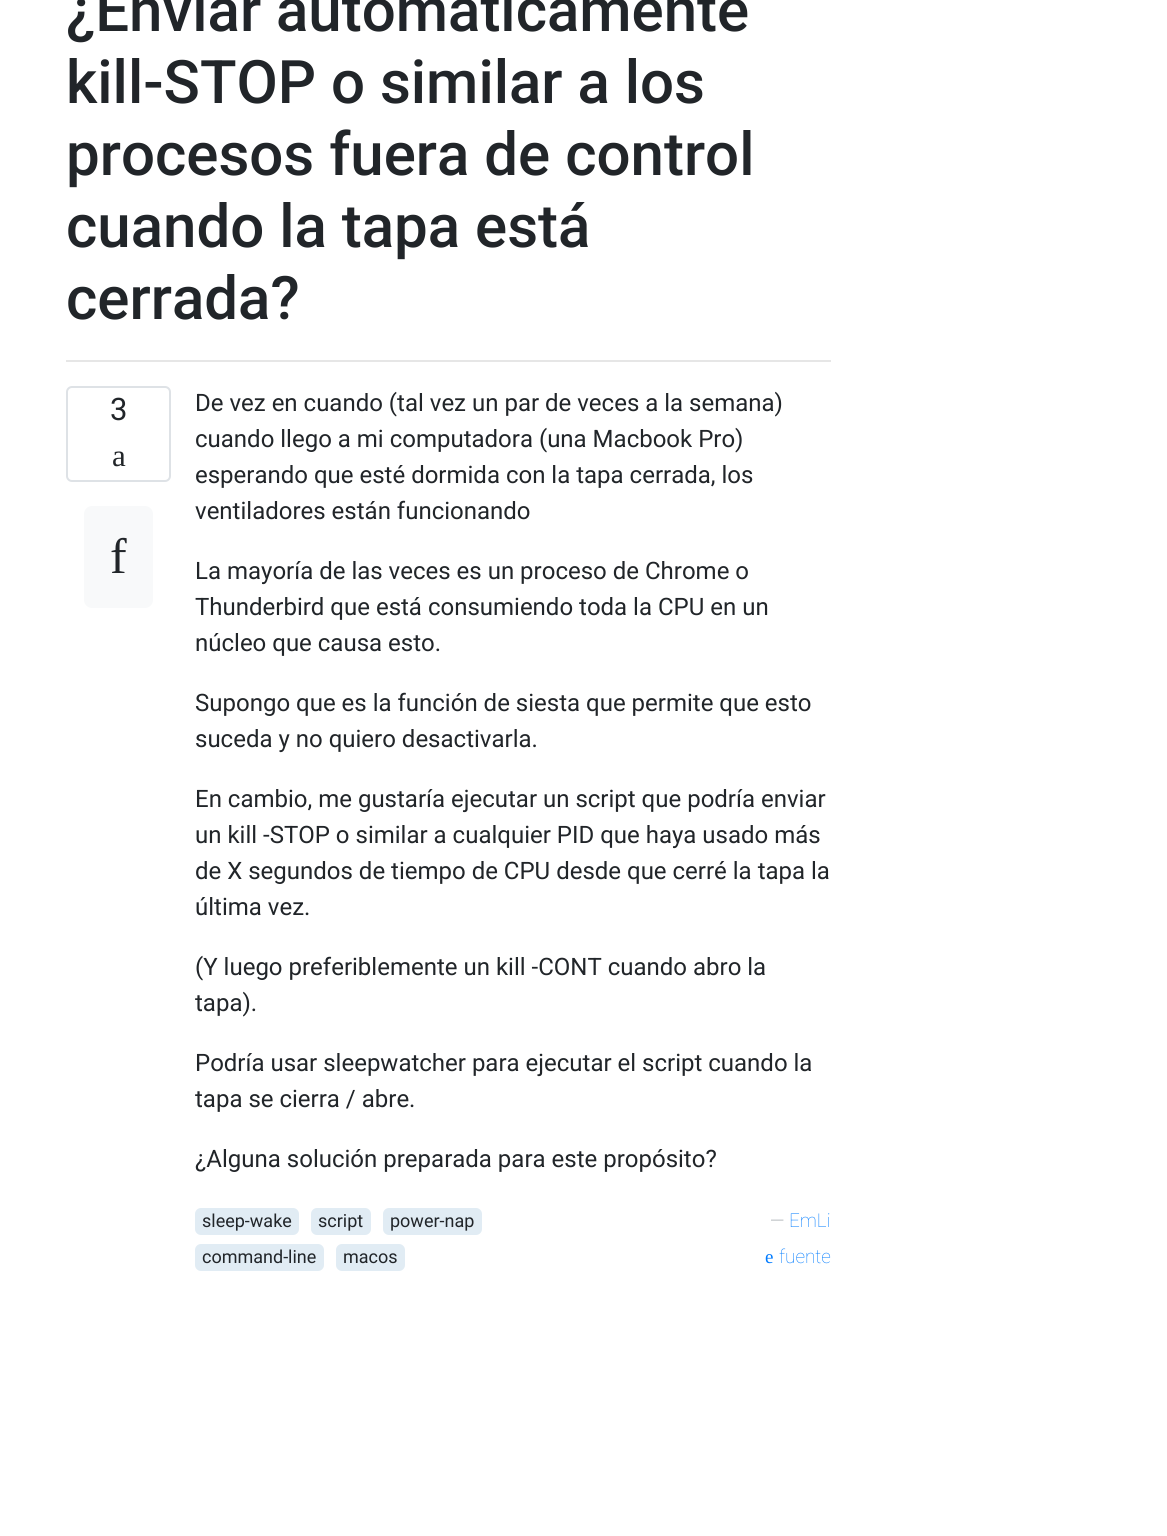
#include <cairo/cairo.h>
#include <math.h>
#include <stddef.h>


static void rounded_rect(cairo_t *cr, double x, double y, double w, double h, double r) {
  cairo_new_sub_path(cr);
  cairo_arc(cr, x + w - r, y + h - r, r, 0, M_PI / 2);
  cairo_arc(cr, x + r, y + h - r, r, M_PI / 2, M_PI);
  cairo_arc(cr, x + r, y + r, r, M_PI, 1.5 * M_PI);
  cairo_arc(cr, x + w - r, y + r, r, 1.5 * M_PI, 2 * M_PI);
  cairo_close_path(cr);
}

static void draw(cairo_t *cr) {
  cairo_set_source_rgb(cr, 1, 1, 1);
  cairo_paint(cr);
  cairo_set_source_rgb(cr, 230 / 255.0, 230 / 255.0, 230 / 255.0);
  cairo_rectangle(cr, 66, 360, 765, 2);
  cairo_fill(cr);
  rounded_rect(cr, 67, 387, 103, 94, 5);
  cairo_set_source_rgb(cr, 222 / 255.0, 226 / 255.0, 230 / 255.0);
  cairo_stroke(cr);
  cairo_set_source_rgb(cr, 248 / 255.0, 249 / 255.0, 250 / 255.0);
  rounded_rect(cr, 84, 506, 69, 102, 8);
  cairo_fill(cr);
  cairo_set_source_rgb(cr, 225 / 255.0, 236 / 255.0, 244 / 255.0);
  rounded_rect(cr, 195, 1208, 104, 27, 6);
  cairo_fill(cr);
  rounded_rect(cr, 311, 1208, 60, 27, 6);
  cairo_fill(cr);
  rounded_rect(cr, 383, 1208, 99, 27, 6);
  cairo_fill(cr);
  rounded_rect(cr, 195, 1244, 129, 27, 6);
  cairo_fill(cr);
  rounded_rect(cr, 336, 1244, 69, 27, 6);
  cairo_fill(cr);
  cairo_select_font_face(cr, "Roboto Medium", CAIRO_FONT_SLANT_NORMAL, CAIRO_FONT_WEIGHT_NORMAL);
  cairo_set_font_size(cr, 60);
  cairo_set_source_rgb(cr, 33 / 255.0, 37 / 255.0, 41 / 255.0);
  cairo_move_to(cr, 66, 31);
  cairo_show_text(cr, "¿Enviar automáticamente");
  cairo_move_to(cr, 66, 103);
  cairo_show_text(cr, "kill-STOP o similar a los");
  cairo_move_to(cr, 66, 175);
  cairo_show_text(cr, "procesos fuera de control");
  cairo_move_to(cr, 66, 247);
  cairo_show_text(cr, "cuando la tapa está");
  cairo_move_to(cr, 66, 319);
  cairo_show_text(cr, "cerrada?");
  cairo_select_font_face(cr, "Roboto", CAIRO_FONT_SLANT_NORMAL, CAIRO_FONT_WEIGHT_NORMAL);
  cairo_set_font_size(cr, 31);
  cairo_move_to(cr, 110, 420);
  cairo_show_text(cr, "3");
  cairo_select_font_face(cr, "Liberation Serif", CAIRO_FONT_SLANT_NORMAL, CAIRO_FONT_WEIGHT_NORMAL);
  cairo_move_to(cr, 112, 466);
  cairo_show_text(cr, "a");
  cairo_set_font_size(cr, 50);
  cairo_move_to(cr, 110, 573);
  cairo_show_text(cr, "f");
  cairo_select_font_face(cr, "Roboto", CAIRO_FONT_SLANT_NORMAL, CAIRO_FONT_WEIGHT_NORMAL);
  cairo_set_font_size(cr, 24);
  cairo_move_to(cr, 195, 411);
  cairo_show_text(cr, "De vez en cuando (tal vez un par de veces a la semana)");
  cairo_move_to(cr, 195, 447);
  cairo_show_text(cr, "cuando llego a mi computadora (una Macbook Pro)");
  cairo_move_to(cr, 195, 483);
  cairo_show_text(cr, "esperando que esté dormida con la tapa cerrada, los");
  cairo_move_to(cr, 195, 519);
  cairo_show_text(cr, "ventiladores están funcionando");
  cairo_move_to(cr, 195, 579);
  cairo_show_text(cr, "La mayoría de las veces es un proceso de Chrome o");
  cairo_move_to(cr, 195, 615);
  cairo_show_text(cr, "Thunderbird que está consumiendo toda la CPU en un");
  cairo_move_to(cr, 195, 651);
  cairo_show_text(cr, "núcleo que causa esto.");
  cairo_move_to(cr, 195, 711);
  cairo_show_text(cr, "Supongo que es la función de siesta que permite que esto");
  cairo_move_to(cr, 195, 747);
  cairo_show_text(cr, "suceda y no quiero desactivarla.");
  cairo_move_to(cr, 195, 807);
  cairo_show_text(cr, "En cambio, me gustaría ejecutar un script que podría enviar");
  cairo_move_to(cr, 195, 843);
  cairo_show_text(cr, "un kill -STOP o similar a cualquier PID que haya usado más");
  cairo_move_to(cr, 195, 879);
  cairo_show_text(cr, "de X segundos de tiempo de CPU desde que cerré la tapa la");
  cairo_move_to(cr, 195, 915);
  cairo_show_text(cr, "última vez.");
  cairo_move_to(cr, 195, 975);
  cairo_show_text(cr, "(Y luego preferiblemente un kill -CONT cuando abro la");
  cairo_move_to(cr, 195, 1011);
  cairo_show_text(cr, "tapa).");
  cairo_move_to(cr, 195, 1071);
  cairo_show_text(cr, "Podría usar sleepwatcher para ejecutar el script cuando la");
  cairo_move_to(cr, 195, 1107);
  cairo_show_text(cr, "tapa se cierra / abre.");
  cairo_move_to(cr, 195, 1167);
  cairo_show_text(cr, "¿Alguna solución preparada para este propósito?");
  cairo_set_font_size(cr, 18);
  cairo_move_to(cr, 202, 1227);
  cairo_show_text(cr, "sleep-wake");
  cairo_move_to(cr, 318, 1227);
  cairo_show_text(cr, "script");
  cairo_move_to(cr, 390, 1227);
  cairo_show_text(cr, "power-nap");
  cairo_move_to(cr, 202, 1263);
  cairo_show_text(cr, "command-line");
  cairo_move_to(cr, 343, 1263);
  cairo_show_text(cr, "macos");
  cairo_select_font_face(cr, "Roboto Thin", CAIRO_FONT_SLANT_NORMAL, CAIRO_FONT_WEIGHT_NORMAL);
  cairo_set_font_size(cr, 19);
  cairo_set_source_rgb(cr, 108 / 255.0, 117 / 255.0, 125 / 255.0);
  cairo_move_to(cr, 770, 1227);
  cairo_show_text(cr, "—");
  cairo_set_source_rgb(cr, 0, 123 / 255.0, 1);
  cairo_move_to(cr, 789, 1227);
  cairo_show_text(cr, "EmLi");
  cairo_select_font_face(cr, "Liberation Serif", CAIRO_FONT_SLANT_NORMAL, CAIRO_FONT_WEIGHT_NORMAL);
  cairo_move_to(cr, 765, 1263);
  cairo_show_text(cr, "e");
  cairo_select_font_face(cr, "Roboto Thin", CAIRO_FONT_SLANT_NORMAL, CAIRO_FONT_WEIGHT_NORMAL);
  cairo_move_to(cr, 779, 1263);
  cairo_show_text(cr, "fuente");
}

int main(void) {
  cairo_surface_t *surface = cairo_image_surface_create(CAIRO_FORMAT_RGB24, 1167, 1536);
  cairo_t *cr = cairo_create(surface);
  cairo_font_options_t *options = cairo_font_options_create();
  cairo_font_options_set_hint_metrics(options, CAIRO_HINT_METRICS_OFF);
  cairo_font_options_set_hint_style(options, CAIRO_HINT_STYLE_NONE);
  cairo_set_font_options(cr, options);
  cairo_set_miter_limit(cr, 4);
  draw(cr);
  cairo_surface_write_to_png(surface, "out.png");
  cairo_font_options_destroy(options);
  cairo_destroy(cr);
  cairo_surface_destroy(surface);
  return 0;
}
